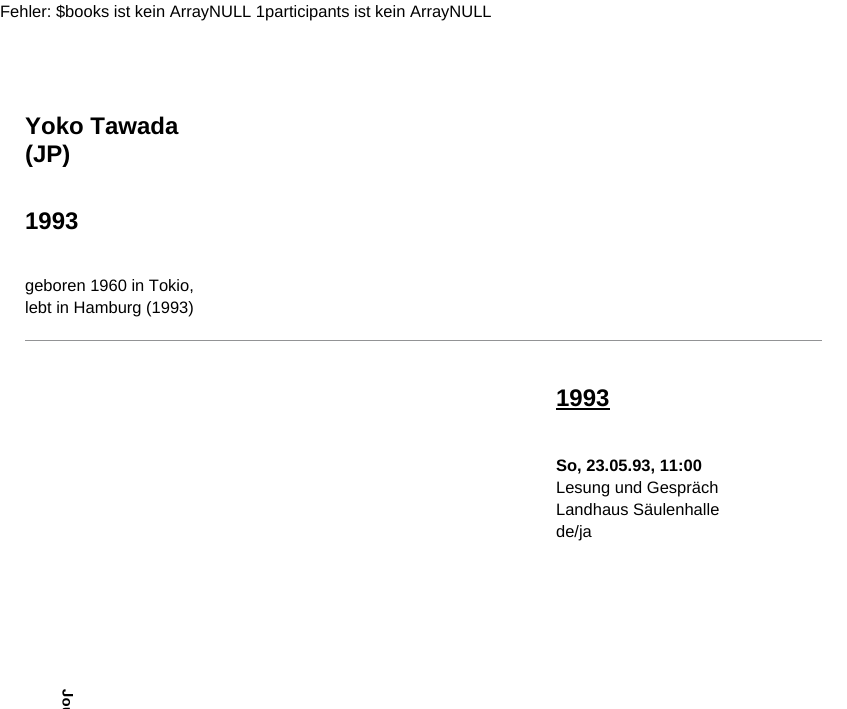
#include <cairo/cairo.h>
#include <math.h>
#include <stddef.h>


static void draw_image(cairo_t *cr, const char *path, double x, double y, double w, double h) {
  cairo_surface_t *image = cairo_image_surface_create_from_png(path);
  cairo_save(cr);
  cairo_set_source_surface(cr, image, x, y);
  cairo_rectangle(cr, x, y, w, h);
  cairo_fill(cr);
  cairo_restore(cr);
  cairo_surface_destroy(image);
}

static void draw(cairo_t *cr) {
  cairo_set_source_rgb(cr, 1, 1, 1);
  cairo_paint(cr);
  cairo_set_source_rgb(cr, 146 / 255.0, 147 / 255.0, 149 / 255.0);
  cairo_rectangle(cr, 25, 340, 797, 1);
  cairo_fill(cr);
  cairo_set_source_rgb(cr, 0, 0, 0);
  cairo_rectangle(cr, 556, 408, 54, 2);
  cairo_fill(cr);
  draw_image(cr, "images/1.png", 62, 689, 11, 20);
  cairo_select_font_face(cr, "Liberation Sans", CAIRO_FONT_SLANT_NORMAL, CAIRO_FONT_WEIGHT_NORMAL);
  cairo_set_font_size(cr, 16.5);
  cairo_move_to(cr, 0, 17);
  cairo_show_text(cr, "Fehler: $books ist kein ArrayNULL 1participants ist kein ArrayNULL");
  cairo_select_font_face(cr, "Liberation Sans", CAIRO_FONT_SLANT_NORMAL, CAIRO_FONT_WEIGHT_BOLD);
  cairo_set_font_size(cr, 24);
  cairo_move_to(cr, 25, 134);
  cairo_show_text(cr, "Yoko Tawada");
  cairo_move_to(cr, 25, 162);
  cairo_show_text(cr, "(JP)");
  cairo_move_to(cr, 25, 229);
  cairo_show_text(cr, "1993");
  cairo_select_font_face(cr, "Liberation Sans", CAIRO_FONT_SLANT_NORMAL, CAIRO_FONT_WEIGHT_NORMAL);
  cairo_set_font_size(cr, 16.5);
  cairo_move_to(cr, 25, 291);
  cairo_show_text(cr, "geboren 1960 in Tokio,");
  cairo_move_to(cr, 25, 313);
  cairo_show_text(cr, "lebt in Hamburg (1993)");
  cairo_select_font_face(cr, "Liberation Sans", CAIRO_FONT_SLANT_NORMAL, CAIRO_FONT_WEIGHT_BOLD);
  cairo_set_font_size(cr, 24);
  cairo_move_to(cr, 556, 406);
  cairo_show_text(cr, "1993");
  cairo_set_font_size(cr, 16.5);
  cairo_move_to(cr, 556, 471);
  cairo_show_text(cr, "So, 23.05.93, 11:00");
  cairo_select_font_face(cr, "Liberation Sans", CAIRO_FONT_SLANT_NORMAL, CAIRO_FONT_WEIGHT_NORMAL);
  cairo_move_to(cr, 556, 493);
  cairo_show_text(cr, "Lesung und Gespräch");
  cairo_move_to(cr, 556, 515);
  cairo_show_text(cr, "Landhaus Säulenhalle");
  cairo_move_to(cr, 556, 537);
  cairo_show_text(cr, "de/ja");
}

int main(void) {
  cairo_surface_t *surface = cairo_image_surface_create(CAIRO_FORMAT_RGB24, 847, 709);
  cairo_t *cr = cairo_create(surface);
  cairo_font_options_t *options = cairo_font_options_create();
  cairo_font_options_set_hint_metrics(options, CAIRO_HINT_METRICS_OFF);
  cairo_font_options_set_hint_style(options, CAIRO_HINT_STYLE_NONE);
  cairo_set_font_options(cr, options);
  cairo_set_miter_limit(cr, 4);
  draw(cr);
  cairo_surface_write_to_png(surface, "out.png");
  cairo_font_options_destroy(options);
  cairo_destroy(cr);
  cairo_surface_destroy(surface);
  return 0;
}
